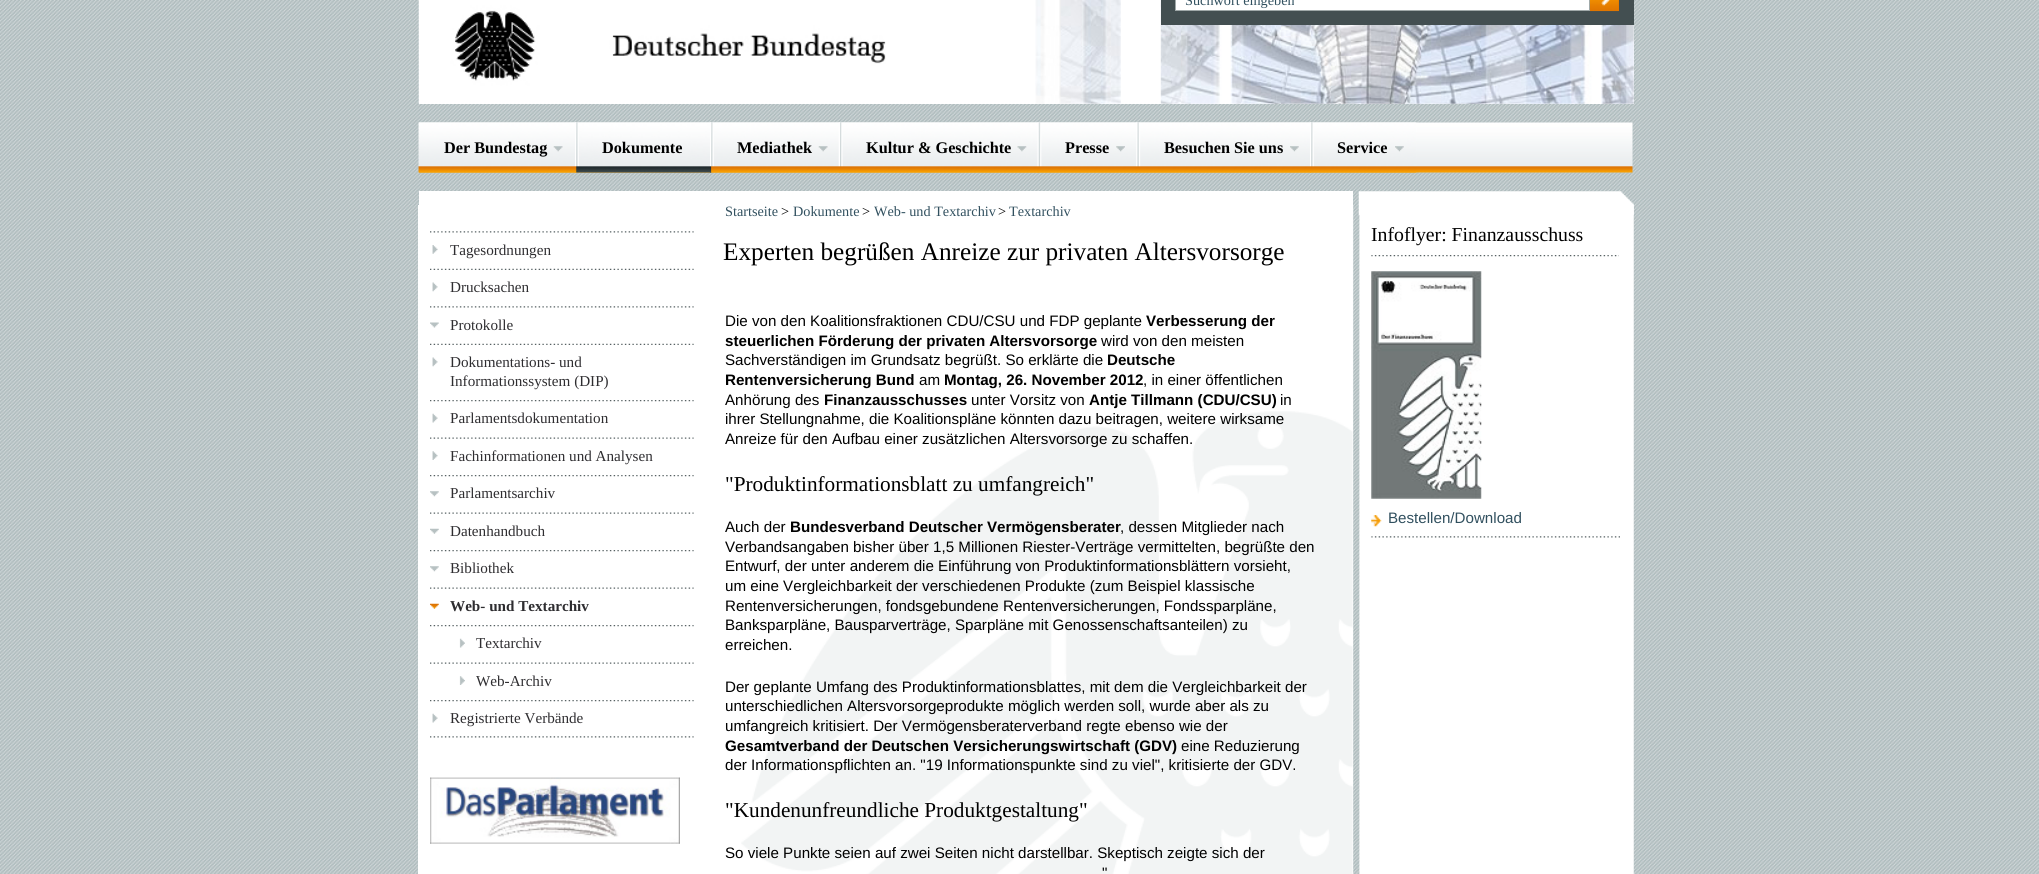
#include <cairo/cairo.h>
#include <math.h>
#include <stddef.h>


static void draw_image(cairo_t *cr, const char *path, double x, double y, double w, double h) {
  cairo_surface_t *image = cairo_image_surface_create_from_png(path);
  cairo_save(cr);
  cairo_set_source_surface(cr, image, x, y);
  cairo_rectangle(cr, x, y, w, h);
  cairo_fill(cr);
  cairo_restore(cr);
  cairo_surface_destroy(image);
}

static void draw(cairo_t *cr) {
  cairo_set_source_rgb(cr, 1, 1, 1);
  cairo_paint(cr);
  draw_image(cr, "images/1.png", 0, 0, 2039, 874);
  cairo_set_source_rgb(cr, 1, 1, 1);
  cairo_rectangle(cr, 419, 0, 1215, 104);
  cairo_fill(cr);
  draw_image(cr, "images/2.png", 418, 0, 468, 104);
  draw_image(cr, "images/3.png", 1035, 0, 599, 104);
  cairo_set_source_rgb(cr, 67 / 255.0, 79 / 255.0, 81 / 255.0);
  cairo_rectangle(cr, 1161, 0, 473, 25);
  cairo_fill(cr);
  cairo_set_source_rgb(cr, 1, 1, 1);
  cairo_rectangle(cr, 1175.5, -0.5, 414, 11);
  cairo_fill_preserve(cr);
  cairo_set_source_rgb(cr, 160 / 255.0, 169 / 255.0, 169 / 255.0);
  cairo_set_line_width(cr, 1);
  cairo_stroke(cr);
  cairo_set_source_rgb(cr, 224 / 255.0, 117 / 255.0, 0);
  cairo_rectangle(cr, 1618, 0, 1, 11);
  cairo_fill(cr);
  draw_image(cr, "images/4.png", 1590, 0, 29, 12);
  draw_image(cr, "images/5.png", 1601, 0, 9, 6);
  draw_image(cr, "images/6.png", 418, 122, 1215, 51);
  draw_image(cr, "images/7.png", 418, 122, 159, 51);
  draw_image(cr, "images/8.png", 575, 122, 2, 51);
  draw_image(cr, "images/9.png", 553, 146, 10, 6);
  draw_image(cr, "images/10.png", 576, 122, 136, 51);
  draw_image(cr, "images/11.png", 710, 122, 2, 51);
  draw_image(cr, "images/12.png", 711, 122, 129, 51);
  draw_image(cr, "images/13.png", 838, 122, 2, 51);
  draw_image(cr, "images/14.png", 818, 146, 10, 6);
  draw_image(cr, "images/15.png", 840, 122, 199, 51);
  draw_image(cr, "images/16.png", 1037, 122, 2, 51);
  draw_image(cr, "images/17.png", 1017, 146, 10, 6);
  draw_image(cr, "images/18.png", 1038, 122, 100, 51);
  draw_image(cr, "images/19.png", 1136, 122, 2, 51);
  draw_image(cr, "images/20.png", 1116, 146, 9, 6);
  draw_image(cr, "images/21.png", 1137, 122, 175, 51);
  draw_image(cr, "images/22.png", 1310, 122, 2, 51);
  draw_image(cr, "images/23.png", 1290, 146, 9, 6);
  draw_image(cr, "images/24.png", 1311, 122, 106, 51);
  draw_image(cr, "images/25.png", 1395, 146, 9, 6);
  cairo_set_source_rgb(cr, 1, 1, 1);
  cairo_rectangle(cr, 419, 191, 299, 14);
  cairo_fill(cr);
  cairo_rectangle(cr, 718, 191, 635, 24);
  cairo_fill(cr);
  draw_image(cr, "images/26.png", 1358, 191, 276, 24);
  cairo_rectangle(cr, 418, 205, 306, 669);
  cairo_fill(cr);
  draw_image(cr, "images/27.png", 724, 205, 910, 669);
  draw_image(cr, "images/28.png", 430, 736, 264, 2);
  draw_image(cr, "images/28.png", 430, 231, 264, 2);
  draw_image(cr, "images/29.png", 432, 245, 6, 9);
  draw_image(cr, "images/30.png", 430, 268, 264, 2);
  draw_image(cr, "images/31.png", 432, 282, 6, 10);
  draw_image(cr, "images/28.png", 430, 306, 264, 2);
  draw_image(cr, "images/32.png", 430, 322, 9, 6);
  draw_image(cr, "images/30.png", 430, 343, 264, 2);
  draw_image(cr, "images/31.png", 432, 357, 6, 10);
  draw_image(cr, "images/33.png", 430, 400, 264, 2);
  draw_image(cr, "images/34.png", 432, 413, 6, 10);
  draw_image(cr, "images/35.png", 430, 437, 264, 2);
  draw_image(cr, "images/36.png", 432, 451, 6, 9);
  draw_image(cr, "images/37.png", 430, 475, 264, 2);
  draw_image(cr, "images/38.png", 430, 491, 9, 6);
  draw_image(cr, "images/35.png", 430, 512, 264, 2);
  draw_image(cr, "images/39.png", 430, 528, 9, 6);
  draw_image(cr, "images/33.png", 430, 550, 264, 2);
  draw_image(cr, "images/38.png", 430, 566, 9, 6);
  draw_image(cr, "images/35.png", 430, 587, 264, 2);
  draw_image(cr, "images/40.png", 430, 603, 9, 6);
  draw_image(cr, "images/33.png", 430, 625, 264, 2);
  draw_image(cr, "images/41.png", 459, 638, 6, 10);
  draw_image(cr, "images/35.png", 430, 662, 264, 2);
  draw_image(cr, "images/42.png", 459, 676, 6, 9);
  draw_image(cr, "images/37.png", 430, 700, 264, 2);
  draw_image(cr, "images/34.png", 432, 713, 6, 10);
  draw_image(cr, "images/43.png", 430, 777, 250, 67);
  draw_image(cr, "images/44.png", 741, 411, 612, 463);
  draw_image(cr, "images/45.png", 1371, 536, 249, 2);
  draw_image(cr, "images/46.png", 1371, 255, 248, 2);
  draw_image(cr, "images/47.png", 1371, 271, 111, 228);
  draw_image(cr, "images/48.png", 1371, 515, 11, 12);
  cairo_select_font_face(cr, "Liberation Serif", CAIRO_FONT_SLANT_NORMAL, CAIRO_FONT_WEIGHT_NORMAL);
  cairo_set_font_size(cr, 14.25);
  cairo_set_source_rgb(cr, 49 / 255.0, 80 / 255.0, 95 / 255.0);
  cairo_move_to(cr, 1185, 5);
  cairo_show_text(cr, "Suchwort eingeben");
  cairo_select_font_face(cr, "Liberation Serif", CAIRO_FONT_SLANT_NORMAL, CAIRO_FONT_WEIGHT_BOLD);
  cairo_set_font_size(cr, 16.25);
  cairo_set_source_rgb(cr, 0, 0, 0);
  cairo_move_to(cr, 444, 153);
  cairo_show_text(cr, "Der Bundestag");
  cairo_move_to(cr, 602, 153);
  cairo_show_text(cr, "Dokumente");
  cairo_move_to(cr, 737, 153);
  cairo_show_text(cr, "Mediathek");
  cairo_move_to(cr, 866, 153);
  cairo_show_text(cr, "Kultur & Geschichte");
  cairo_move_to(cr, 1065, 153);
  cairo_show_text(cr, "Presse");
  cairo_move_to(cr, 1164, 153);
  cairo_show_text(cr, "Besuchen Sie uns");
  cairo_move_to(cr, 1337, 153);
  cairo_show_text(cr, "Service");
  cairo_select_font_face(cr, "Liberation Serif", CAIRO_FONT_SLANT_NORMAL, CAIRO_FONT_WEIGHT_NORMAL);
  cairo_set_font_size(cr, 15.15);
  cairo_set_source_rgb(cr, 46 / 255.0, 45 / 255.0, 48 / 255.0);
  cairo_move_to(cr, 450, 255);
  cairo_show_text(cr, "Tagesordnungen");
  cairo_move_to(cr, 450, 292);
  cairo_show_text(cr, "Drucksachen");
  cairo_move_to(cr, 450, 330);
  cairo_show_text(cr, "Protokolle");
  cairo_move_to(cr, 450, 367);
  cairo_show_text(cr, "Dokumentations- und");
  cairo_move_to(cr, 450, 386);
  cairo_show_text(cr, "Informationssystem (DIP)");
  cairo_move_to(cr, 450, 423);
  cairo_show_text(cr, "Parlamentsdokumentation");
  cairo_move_to(cr, 450, 461);
  cairo_show_text(cr, "Fachinformationen und Analysen");
  cairo_move_to(cr, 450, 498);
  cairo_show_text(cr, "Parlamentsarchiv");
  cairo_move_to(cr, 450, 536);
  cairo_show_text(cr, "Datenhandbuch");
  cairo_move_to(cr, 450, 573);
  cairo_show_text(cr, "Bibliothek");
  cairo_select_font_face(cr, "Liberation Serif", CAIRO_FONT_SLANT_NORMAL, CAIRO_FONT_WEIGHT_BOLD);
  cairo_move_to(cr, 450, 611);
  cairo_show_text(cr, "Web- und Textarchiv");
  cairo_select_font_face(cr, "Liberation Serif", CAIRO_FONT_SLANT_NORMAL, CAIRO_FONT_WEIGHT_NORMAL);
  cairo_move_to(cr, 476, 648);
  cairo_show_text(cr, "Textarchiv");
  cairo_move_to(cr, 476, 686);
  cairo_show_text(cr, "Web-Archiv");
  cairo_move_to(cr, 450, 723);
  cairo_show_text(cr, "Registrierte Verbände");
  cairo_set_font_size(cr, 14.25);
  cairo_set_source_rgb(cr, 49 / 255.0, 80 / 255.0, 95 / 255.0);
  cairo_move_to(cr, 725, 216);
  cairo_show_text(cr, "Startseite");
  cairo_set_source_rgb(cr, 0, 0, 0);
  cairo_move_to(cr, 781, 216);
  cairo_show_text(cr, ">");
  cairo_set_source_rgb(cr, 49 / 255.0, 80 / 255.0, 95 / 255.0);
  cairo_move_to(cr, 793, 216);
  cairo_show_text(cr, "Dokumente");
  cairo_set_source_rgb(cr, 0, 0, 0);
  cairo_move_to(cr, 862, 216);
  cairo_show_text(cr, ">");
  cairo_set_source_rgb(cr, 49 / 255.0, 80 / 255.0, 95 / 255.0);
  cairo_move_to(cr, 874, 216);
  cairo_show_text(cr, "Web- und Textarchiv");
  cairo_set_source_rgb(cr, 0, 0, 0);
  cairo_move_to(cr, 998, 216);
  cairo_show_text(cr, ">");
  cairo_set_source_rgb(cr, 49 / 255.0, 80 / 255.0, 95 / 255.0);
  cairo_move_to(cr, 1009, 216);
  cairo_show_text(cr, "Textarchiv");
  cairo_set_font_size(cr, 25.25);
  cairo_set_source_rgb(cr, 0, 0, 0);
  cairo_move_to(cr, 723, 260);
  cairo_show_text(cr, "Experten begrüßen Anreize zur privaten Altersvorsorge");
  cairo_select_font_face(cr, "Liberation Sans", CAIRO_FONT_SLANT_NORMAL, CAIRO_FONT_WEIGHT_NORMAL);
  cairo_set_font_size(cr, 15.15);
  cairo_move_to(cr, 725, 326);
  cairo_show_text(cr, "Die von den Koalitionsfraktionen CDU/CSU und FDP geplante");
  cairo_select_font_face(cr, "Liberation Sans", CAIRO_FONT_SLANT_NORMAL, CAIRO_FONT_WEIGHT_BOLD);
  cairo_move_to(cr, 1146, 326);
  cairo_show_text(cr, "Verbesserung der");
  cairo_move_to(cr, 725, 346);
  cairo_show_text(cr, "steuerlichen Förderung der privaten Altersvorsorge");
  cairo_select_font_face(cr, "Liberation Sans", CAIRO_FONT_SLANT_NORMAL, CAIRO_FONT_WEIGHT_NORMAL);
  cairo_move_to(cr, 1101, 346);
  cairo_show_text(cr, "wird von den meisten");
  cairo_move_to(cr, 725, 365);
  cairo_show_text(cr, "Sachverständigen im Grundsatz begrüßt. So erklärte die");
  cairo_select_font_face(cr, "Liberation Sans", CAIRO_FONT_SLANT_NORMAL, CAIRO_FONT_WEIGHT_BOLD);
  cairo_move_to(cr, 1107, 365);
  cairo_show_text(cr, "Deutsche");
  cairo_move_to(cr, 725, 385);
  cairo_show_text(cr, "Rentenversicherung Bund");
  cairo_select_font_face(cr, "Liberation Sans", CAIRO_FONT_SLANT_NORMAL, CAIRO_FONT_WEIGHT_NORMAL);
  cairo_move_to(cr, 919, 385);
  cairo_show_text(cr, "am");
  cairo_select_font_face(cr, "Liberation Sans", CAIRO_FONT_SLANT_NORMAL, CAIRO_FONT_WEIGHT_BOLD);
  cairo_move_to(cr, 944, 385);
  cairo_show_text(cr, "Montag, 26. November 2012");
  cairo_select_font_face(cr, "Liberation Sans", CAIRO_FONT_SLANT_NORMAL, CAIRO_FONT_WEIGHT_NORMAL);
  cairo_move_to(cr, 1143, 385);
  cairo_show_text(cr, ", in einer öffentlichen");
  cairo_move_to(cr, 725, 405);
  cairo_show_text(cr, "Anhörung des");
  cairo_select_font_face(cr, "Liberation Sans", CAIRO_FONT_SLANT_NORMAL, CAIRO_FONT_WEIGHT_BOLD);
  cairo_move_to(cr, 824, 405);
  cairo_show_text(cr, "Finanzausschusses");
  cairo_select_font_face(cr, "Liberation Sans", CAIRO_FONT_SLANT_NORMAL, CAIRO_FONT_WEIGHT_NORMAL);
  cairo_move_to(cr, 971, 405);
  cairo_show_text(cr, "unter Vorsitz von");
  cairo_select_font_face(cr, "Liberation Sans", CAIRO_FONT_SLANT_NORMAL, CAIRO_FONT_WEIGHT_BOLD);
  cairo_move_to(cr, 1089, 405);
  cairo_show_text(cr, "Antje Tillmann (CDU/CSU)");
  cairo_select_font_face(cr, "Liberation Sans", CAIRO_FONT_SLANT_NORMAL, CAIRO_FONT_WEIGHT_NORMAL);
  cairo_move_to(cr, 1280, 405);
  cairo_show_text(cr, "in");
  cairo_move_to(cr, 725, 424);
  cairo_show_text(cr, "ihrer Stellungnahme, die Koalitionspläne könnten dazu beitragen, weitere wirksame");
  cairo_move_to(cr, 725, 444);
  cairo_show_text(cr, "Anreize für den Aufbau einer zusätzlichen Altersvorsorge zu schaffen.");
  cairo_select_font_face(cr, "Liberation Serif", CAIRO_FONT_SLANT_NORMAL, CAIRO_FONT_WEIGHT_NORMAL);
  cairo_set_font_size(cr, 21.25);
  cairo_move_to(cr, 725, 491);
  cairo_show_text(cr, "\"Produktinformationsblatt zu umfangreich\"");
  cairo_select_font_face(cr, "Liberation Sans", CAIRO_FONT_SLANT_NORMAL, CAIRO_FONT_WEIGHT_NORMAL);
  cairo_set_font_size(cr, 15.15);
  cairo_move_to(cr, 725, 532);
  cairo_show_text(cr, "Auch der");
  cairo_select_font_face(cr, "Liberation Sans", CAIRO_FONT_SLANT_NORMAL, CAIRO_FONT_WEIGHT_BOLD);
  cairo_move_to(cr, 790, 532);
  cairo_show_text(cr, "Bundesverband Deutscher Vermögensberater");
  cairo_select_font_face(cr, "Liberation Sans", CAIRO_FONT_SLANT_NORMAL, CAIRO_FONT_WEIGHT_NORMAL);
  cairo_move_to(cr, 1120, 532);
  cairo_show_text(cr, ", dessen Mitglieder nach");
  cairo_move_to(cr, 725, 552);
  cairo_show_text(cr, "Verbandsangaben bisher über 1,5 Millionen Riester-Verträge vermittelten, begrüßte den");
  cairo_move_to(cr, 725, 571);
  cairo_show_text(cr, "Entwurf, der unter anderem die Einführung von Produktinformationsblättern vorsieht,");
  cairo_move_to(cr, 725, 591);
  cairo_show_text(cr, "um eine Vergleichbarkeit der verschiedenen Produkte (zum Beispiel klassische");
  cairo_move_to(cr, 725, 611);
  cairo_show_text(cr, "Rentenversicherungen, fondsgebundene Rentenversicherungen, Fondssparpläne,");
  cairo_move_to(cr, 725, 630);
  cairo_show_text(cr, "Banksparpläne, Bausparverträge, Sparpläne mit Genossenschaftsanteilen) zu");
  cairo_move_to(cr, 725, 650);
  cairo_show_text(cr, "erreichen.");
  cairo_move_to(cr, 725, 692);
  cairo_show_text(cr, "Der geplante Umfang des Produktinformationsblattes, mit dem die Vergleichbarkeit der");
  cairo_move_to(cr, 725, 711);
  cairo_show_text(cr, "unterschiedlichen Altersvorsorgeprodukte möglich werden soll, wurde aber als zu");
  cairo_move_to(cr, 725, 731);
  cairo_show_text(cr, "umfangreich kritisiert. Der Vermögensberaterverband regte ebenso wie der");
  cairo_select_font_face(cr, "Liberation Sans", CAIRO_FONT_SLANT_NORMAL, CAIRO_FONT_WEIGHT_BOLD);
  cairo_move_to(cr, 725, 751);
  cairo_show_text(cr, "Gesamtverband der Deutschen Versicherungswirtschaft (GDV)");
  cairo_select_font_face(cr, "Liberation Sans", CAIRO_FONT_SLANT_NORMAL, CAIRO_FONT_WEIGHT_NORMAL);
  cairo_move_to(cr, 1181, 751);
  cairo_show_text(cr, "eine Reduzierung");
  cairo_move_to(cr, 725, 770);
  cairo_show_text(cr, "der Informationspflichten an. \"19 Informationspunkte sind zu viel\", kritisierte der GDV.");
  cairo_select_font_face(cr, "Liberation Serif", CAIRO_FONT_SLANT_NORMAL, CAIRO_FONT_WEIGHT_NORMAL);
  cairo_set_font_size(cr, 21.25);
  cairo_move_to(cr, 725, 817);
  cairo_show_text(cr, "\"Kundenunfreundliche Produktgestaltung\"");
  cairo_select_font_face(cr, "Liberation Sans", CAIRO_FONT_SLANT_NORMAL, CAIRO_FONT_WEIGHT_NORMAL);
  cairo_set_font_size(cr, 15.15);
  cairo_move_to(cr, 725, 858);
  cairo_show_text(cr, "So viele Punkte seien auf zwei Seiten nicht darstellbar. Skeptisch zeigte sich der");
  cairo_move_to(cr, 1102, 878);
  cairo_show_text(cr, "\"");
  cairo_select_font_face(cr, "Liberation Serif", CAIRO_FONT_SLANT_NORMAL, CAIRO_FONT_WEIGHT_NORMAL);
  cairo_set_font_size(cr, 19.75);
  cairo_move_to(cr, 1371, 241);
  cairo_show_text(cr, "Infoflyer: Finanzausschuss");
  cairo_select_font_face(cr, "Liberation Sans", CAIRO_FONT_SLANT_NORMAL, CAIRO_FONT_WEIGHT_NORMAL);
  cairo_set_font_size(cr, 15.15);
  cairo_set_source_rgb(cr, 49 / 255.0, 80 / 255.0, 95 / 255.0);
  cairo_move_to(cr, 1388, 523);
  cairo_show_text(cr, "Bestellen/Download");
}

int main(void) {
  cairo_surface_t *surface = cairo_image_surface_create(CAIRO_FORMAT_RGB24, 2039, 874);
  cairo_t *cr = cairo_create(surface);
  cairo_font_options_t *options = cairo_font_options_create();
  cairo_font_options_set_hint_metrics(options, CAIRO_HINT_METRICS_OFF);
  cairo_font_options_set_hint_style(options, CAIRO_HINT_STYLE_NONE);
  cairo_set_font_options(cr, options);
  cairo_set_miter_limit(cr, 4);
  draw(cr);
  cairo_surface_write_to_png(surface, "out.png");
  cairo_font_options_destroy(options);
  cairo_destroy(cr);
  cairo_surface_destroy(surface);
  return 0;
}
